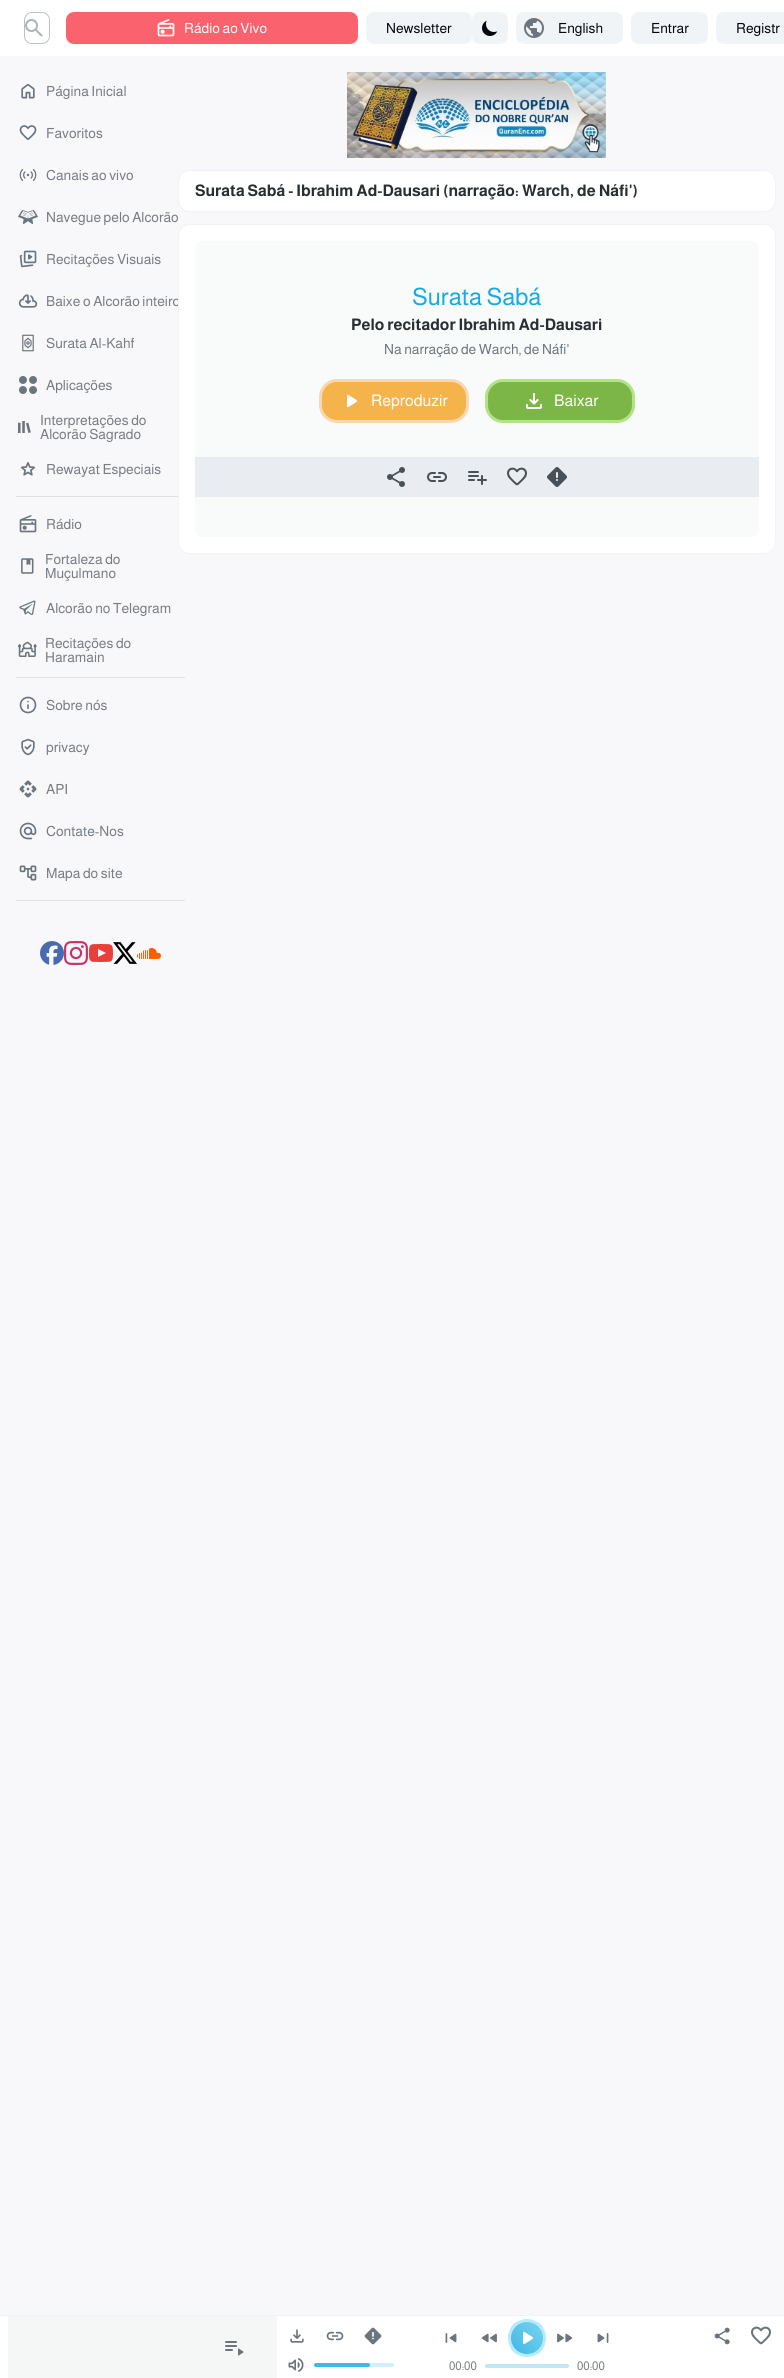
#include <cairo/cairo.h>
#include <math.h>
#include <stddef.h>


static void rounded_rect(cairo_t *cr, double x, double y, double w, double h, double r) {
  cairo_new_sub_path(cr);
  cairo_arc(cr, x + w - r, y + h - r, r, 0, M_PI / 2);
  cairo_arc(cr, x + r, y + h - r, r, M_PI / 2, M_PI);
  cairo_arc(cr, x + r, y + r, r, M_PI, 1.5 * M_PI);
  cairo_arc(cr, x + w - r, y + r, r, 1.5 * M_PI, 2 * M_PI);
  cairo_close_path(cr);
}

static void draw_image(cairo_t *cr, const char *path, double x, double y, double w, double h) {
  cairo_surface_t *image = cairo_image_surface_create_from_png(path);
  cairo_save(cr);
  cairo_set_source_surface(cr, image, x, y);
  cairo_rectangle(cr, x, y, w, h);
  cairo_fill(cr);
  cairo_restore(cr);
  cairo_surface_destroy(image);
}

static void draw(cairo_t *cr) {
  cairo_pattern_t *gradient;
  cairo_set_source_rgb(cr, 248 / 255.0, 247 / 255.0, 249 / 255.0);
  cairo_paint(cr);
  cairo_set_source_rgb(cr, 1, 1, 1);
  cairo_rectangle(cr, 0, 0, 784, 56);
  cairo_fill(cr);
  rounded_rect(cr, 24.5, 12.5, 25, 31, 7.5);
  cairo_set_source_rgb(cr, 188 / 255.0, 195 / 255.0, 198 / 255.0);
  cairo_set_line_width(cr, 1);
  cairo_stroke(cr);
  draw_image(cr, "images/1.png", 25, 19, 18, 18);
  cairo_set_source_rgb(cr, 250 / 255.0, 98 / 255.0, 109 / 255.0);
  rounded_rect(cr, 66, 12, 292, 32, 8);
  cairo_fill(cr);
  draw_image(cr, "images/2.png", 157, 19, 18, 18);
  cairo_set_source_rgb(cr, 240 / 255.0, 244 / 255.0, 246 / 255.0);
  rounded_rect(cr, 366, 12, 106, 32, 8);
  cairo_fill(cr);
  rounded_rect(cr, 472, 12, 36, 32, 8);
  cairo_fill(cr);
  draw_image(cr, "images/3.png", 482, 20, 16, 16);
  rounded_rect(cr, 516, 12, 107, 32, 8);
  cairo_fill(cr);
  draw_image(cr, "images/4.png", 524, 18, 20, 20);
  rounded_rect(cr, 631, 12, 77, 32, 8);
  cairo_fill(cr);
  rounded_rect(cr, 716, 12, 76, 32, 8);
  cairo_fill(cr);
  draw_image(cr, "images/5.png", 21, 84, 14, 15);
  draw_image(cr, "images/6.png", 19, 125, 18, 15);
  draw_image(cr, "images/7.png", 19, 169, 18, 12);
  draw_image(cr, "images/8.png", 18, 210, 20, 14);
  draw_image(cr, "images/9.png", 19, 250, 18, 18);
  draw_image(cr, "images/10.png", 18, 294, 20, 14);
  draw_image(cr, "images/11.png", 22, 334, 12, 18);
  draw_image(cr, "images/12.png", 19, 376, 18, 18);
  draw_image(cr, "images/13.png", 18, 421, 13, 12);
  draw_image(cr, "images/14.png", 20, 462, 16, 14);
  cairo_set_source_rgb(cr, 222 / 255.0, 226 / 255.0, 230 / 255.0);
  cairo_rectangle(cr, 16, 496, 169, 1);
  cairo_fill(cr);
  draw_image(cr, "images/15.png", 19, 515, 18, 18);
  draw_image(cr, "images/16.png", 21, 558, 13, 16);
  draw_image(cr, "images/17.png", 19, 600, 17, 15);
  draw_image(cr, "images/18.png", 18, 641, 19, 16);
  cairo_rectangle(cr, 16, 677, 169, 1);
  cairo_fill(cr);
  draw_image(cr, "images/19.png", 19, 696, 18, 18);
  draw_image(cr, "images/20.png", 21, 738, 14, 18);
  draw_image(cr, "images/21.png", 19, 780, 18, 18);
  draw_image(cr, "images/22.png", 19, 822, 18, 18);
  draw_image(cr, "images/23.png", 19, 865, 18, 16);
  cairo_rectangle(cr, 16, 900, 169, 1);
  cairo_fill(cr);
  draw_image(cr, "images/24.png", 40, 941, 24, 24);
  draw_image(cr, "images/25.png", 64, 941, 24, 24);
  draw_image(cr, "images/26.png", 89, 944, 24, 18);
  draw_image(cr, "images/27.png", 113, 942, 24, 22);
  draw_image(cr, "images/28.png", 137, 947, 24, 12);
  draw_image(cr, "images/29.png", 347, 72, 259, 86);
  cairo_set_source_rgb(cr, 1, 1, 1);
  rounded_rect(cr, 178.5, 170.5, 597, 41, 11.5);
  cairo_fill_preserve(cr);
  cairo_set_source_rgb(cr, 240 / 255.0, 244 / 255.0, 246 / 255.0);
  cairo_stroke(cr);
  cairo_set_source_rgb(cr, 1, 1, 1);
  cairo_rectangle(cr, 0, 2316, 784, 62);
  cairo_fill(cr);
  cairo_set_source_rgb(cr, 240 / 255.0, 244 / 255.0, 246 / 255.0);
  cairo_rectangle(cr, 0, 2315, 784, 1);
  cairo_fill(cr);
  cairo_set_source_rgb(cr, 245 / 255.0, 247 / 255.0, 247 / 255.0);
  cairo_rectangle(cr, 8, 2316, 269, 62);
  cairo_fill(cr);
  draw_image(cr, "images/37.png", 225, 2341, 19, 15);
  draw_image(cr, "images/38.png", 290, 2329, 14, 14);
  draw_image(cr, "images/39.png", 326, 2331, 18, 10);
  draw_image(cr, "images/40.png", 364, 2327, 18, 18);
  draw_image(cr, "images/41.png", 288, 2358, 16, 14);
  cairo_set_source_rgb(cr, 211 / 255.0, 240 / 255.0, 250 / 255.0);
  rounded_rect(cr, 314, 2363, 80, 4, 2);
  cairo_fill(cr);
  cairo_set_source_rgb(cr, 62 / 255.0, 184 / 255.0, 230 / 255.0);
  rounded_rect(cr, 314, 2363, 56, 4, 2);
  cairo_fill(cr);
  draw_image(cr, "images/42.png", 714, 2327, 16, 18);
  draw_image(cr, "images/43.png", 751, 2326, 20, 19);
  draw_image(cr, "images/44.png", 445, 2333, 12, 10);
  draw_image(cr, "images/45.png", 481, 2333, 16, 10);
  cairo_save(cr);
  rounded_rect(cr, 508, 2319, 38, 38, 19);
  cairo_clip(cr);
  gradient = cairo_pattern_create_linear(511, 2354, 543, 2322);
  cairo_pattern_add_color_stop_rgba(gradient, 0, 62 / 255.0, 184 / 255.0, 230 / 255.0, 1);
  cairo_pattern_add_color_stop_rgba(gradient, 1, 122 / 255.0, 211 / 255.0, 239 / 255.0, 1);
  cairo_set_source(cr, gradient);
  cairo_pattern_destroy(gradient);
  cairo_rectangle(cr, 511, 2322, 32, 32);
  cairo_fill(cr);
  cairo_restore(cr);
  cairo_arc(cr, 527, 2338, 17.5, 0, 2 * M_PI);
  cairo_set_source_rgb(cr, 181 / 255.0, 235 / 255.0, 1);
  cairo_set_line_width(cr, 3);
  cairo_stroke(cr);
  draw_image(cr, "images/46.png", 523, 2331, 11, 14);
  draw_image(cr, "images/47.png", 557, 2333, 16, 10);
  draw_image(cr, "images/48.png", 597, 2333, 12, 10);
  cairo_set_source_rgb(cr, 193 / 255.0, 231 / 255.0, 244 / 255.0);
  rounded_rect(cr, 485, 2364, 84, 4, 2);
  cairo_fill(cr);
  cairo_select_font_face(cr, "Almarai", CAIRO_FONT_SLANT_NORMAL, CAIRO_FONT_WEIGHT_NORMAL);
  cairo_set_font_size(cr, 14);
  cairo_set_source_rgb(cr, 1, 1, 1);
  cairo_move_to(cr, 184, 33);
  cairo_show_text(cr, "Rádio ao Vivo");
  cairo_set_source_rgb(cr, 2 / 255.0, 7 / 255.0, 14 / 255.0);
  cairo_move_to(cr, 386, 33);
  cairo_show_text(cr, "Newsletter");
  cairo_move_to(cr, 558, 33);
  cairo_show_text(cr, "English");
  cairo_move_to(cr, 651, 33);
  cairo_show_text(cr, "Entrar");
  cairo_move_to(cr, 736, 33);
  cairo_show_text(cr, "Registr");
  cairo_set_source_rgb(cr, 120 / 255.0, 125 / 255.0, 132 / 255.0);
  cairo_move_to(cr, 46, 96);
  cairo_show_text(cr, "Página Inicial");
  cairo_move_to(cr, 46, 138);
  cairo_show_text(cr, "Favoritos");
  cairo_move_to(cr, 46, 180);
  cairo_show_text(cr, "Canais ao vivo");
  cairo_move_to(cr, 46, 222);
  cairo_show_text(cr, "Navegue pelo Alcorão");
  cairo_move_to(cr, 46, 264);
  cairo_show_text(cr, "Recitações Visuais");
  cairo_move_to(cr, 46, 306);
  cairo_show_text(cr, "Baixe o Alcorão inteiro");
  cairo_move_to(cr, 46, 348);
  cairo_show_text(cr, "Surata Al-Kahf");
  cairo_move_to(cr, 46, 390);
  cairo_show_text(cr, "Aplicações");
  cairo_move_to(cr, 40, 425);
  cairo_show_text(cr, "Interpretações do");
  cairo_move_to(cr, 40, 439);
  cairo_show_text(cr, "Alcorão Sagrado");
  cairo_move_to(cr, 46, 474);
  cairo_show_text(cr, "Rewayat Especiais");
  cairo_move_to(cr, 46, 529);
  cairo_show_text(cr, "Rádio");
  cairo_move_to(cr, 45, 564);
  cairo_show_text(cr, "Fortaleza do");
  cairo_move_to(cr, 45, 578);
  cairo_show_text(cr, "Muçulmano");
  cairo_move_to(cr, 46, 613);
  cairo_show_text(cr, "Alcorão no Telegram");
  cairo_move_to(cr, 45, 648);
  cairo_show_text(cr, "Recitações do");
  cairo_move_to(cr, 45, 662);
  cairo_show_text(cr, "Haramain");
  cairo_move_to(cr, 46, 710);
  cairo_show_text(cr, "Sobre nós");
  cairo_move_to(cr, 46, 752);
  cairo_show_text(cr, "privacy");
  cairo_move_to(cr, 46, 794);
  cairo_show_text(cr, "API");
  cairo_move_to(cr, 46, 836);
  cairo_show_text(cr, "Contate-Nos");
  cairo_move_to(cr, 46, 878);
  cairo_show_text(cr, "Mapa do site");
  cairo_select_font_face(cr, "Almarai", CAIRO_FONT_SLANT_NORMAL, CAIRO_FONT_WEIGHT_BOLD);
  cairo_set_font_size(cr, 16);
  cairo_set_source_rgb(cr, 41 / 255.0, 46 / 255.0, 51 / 255.0);
  cairo_move_to(cr, 195, 196);
  cairo_show_text(cr, "Surata Sabá - Ibrahim Ad-Dausari (narração: Warch, de Náfi')");
  cairo_set_source_rgb(cr, 1, 1, 1);
  rounded_rect(cr, 178.5, 224.5, 597, 329, 11.5);
  cairo_fill_preserve(cr);
  cairo_set_source_rgb(cr, 240 / 255.0, 244 / 255.0, 246 / 255.0);
  cairo_set_line_width(cr, 1);
  cairo_stroke(cr);
  cairo_set_source_rgb(cr, 249 / 255.0, 250 / 255.0, 250 / 255.0);
  rounded_rect(cr, 195, 241, 564, 296, 8);
  cairo_fill(cr);
  cairo_select_font_face(cr, "Almarai", CAIRO_FONT_SLANT_NORMAL, CAIRO_FONT_WEIGHT_NORMAL);
  cairo_set_font_size(cr, 24);
  cairo_set_source_rgb(cr, 20 / 255.0, 170 / 255.0, 226 / 255.0);
  cairo_move_to(cr, 412, 305);
  cairo_show_text(cr, "Surata Sabá");
  cairo_select_font_face(cr, "Almarai", CAIRO_FONT_SLANT_NORMAL, CAIRO_FONT_WEIGHT_BOLD);
  cairo_set_font_size(cr, 16);
  cairo_set_source_rgb(cr, 41 / 255.0, 46 / 255.0, 51 / 255.0);
  cairo_move_to(cr, 351, 330);
  cairo_show_text(cr, "Pelo recitador Ibrahim Ad-Dausari");
  cairo_select_font_face(cr, "Almarai", CAIRO_FONT_SLANT_NORMAL, CAIRO_FONT_WEIGHT_NORMAL);
  cairo_set_font_size(cr, 14);
  cairo_set_source_rgb(cr, 108 / 255.0, 117 / 255.0, 125 / 255.0);
  cairo_move_to(cr, 384, 354);
  cairo_show_text(cr, "Na narração de Warch, de Náfi'");
  cairo_set_source_rgb(cr, 245 / 255.0, 180 / 255.0, 75 / 255.0);
  rounded_rect(cr, 320.5, 380.5, 147, 41, 16.5);
  cairo_fill_preserve(cr);
  cairo_set_source_rgb(cr, 249 / 255.0, 216 / 255.0, 177 / 255.0);
  cairo_set_line_width(cr, 3);
  cairo_stroke(cr);
  draw_image(cr, "images/30.png", 347, 394, 11, 14);
  cairo_set_font_size(cr, 16);
  cairo_set_source_rgb(cr, 1, 1, 1);
  cairo_move_to(cr, 371, 406);
  cairo_show_text(cr, "Reproduzir");
  cairo_set_source_rgb(cr, 124 / 255.0, 182 / 255.0, 71 / 255.0);
  rounded_rect(cr, 486.5, 380.5, 147, 41, 16.5);
  cairo_fill_preserve(cr);
  cairo_set_source_rgb(cr, 179 / 255.0, 227 / 255.0, 135 / 255.0);
  cairo_stroke(cr);
  draw_image(cr, "images/31.png", 526, 393, 16, 16);
  cairo_set_source_rgb(cr, 1, 1, 1);
  cairo_move_to(cr, 554, 406);
  cairo_show_text(cr, "Baixar");
  cairo_set_source_rgb(cr, 233 / 255.0, 237 / 255.0, 241 / 255.0);
  cairo_rectangle(cr, 195, 457, 564, 40);
  cairo_fill(cr);
  draw_image(cr, "images/32.png", 387, 467, 18, 20);
  draw_image(cr, "images/33.png", 427, 472, 20, 10);
  draw_image(cr, "images/34.png", 468, 471, 19, 14);
  draw_image(cr, "images/35.png", 507, 467, 20, 19);
  draw_image(cr, "images/36.png", 547, 467, 20, 20);
  cairo_set_font_size(cr, 12);
  cairo_set_source_rgb(cr, 120 / 255.0, 125 / 255.0, 132 / 255.0);
  cairo_move_to(cr, 449, 2370);
  cairo_show_text(cr, "00:00");
  cairo_move_to(cr, 577, 2370);
  cairo_show_text(cr, "00:00");
}

int main(void) {
  cairo_surface_t *surface = cairo_image_surface_create(CAIRO_FORMAT_RGB24, 784, 2378);
  cairo_t *cr = cairo_create(surface);
  cairo_font_options_t *options = cairo_font_options_create();
  cairo_font_options_set_hint_metrics(options, CAIRO_HINT_METRICS_OFF);
  cairo_font_options_set_hint_style(options, CAIRO_HINT_STYLE_NONE);
  cairo_set_font_options(cr, options);
  cairo_set_miter_limit(cr, 4);
  draw(cr);
  cairo_surface_write_to_png(surface, "out.png");
  cairo_font_options_destroy(options);
  cairo_destroy(cr);
  cairo_surface_destroy(surface);
  return 0;
}
